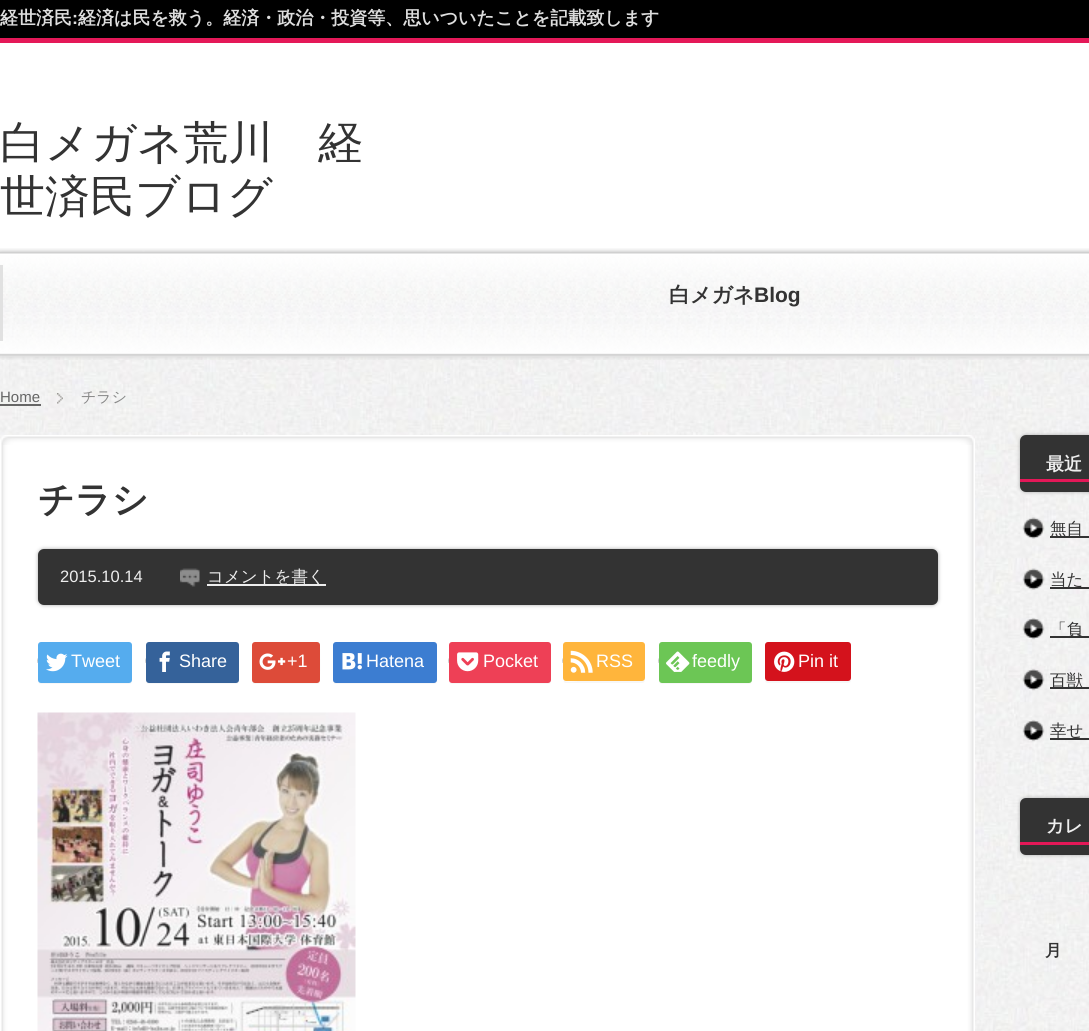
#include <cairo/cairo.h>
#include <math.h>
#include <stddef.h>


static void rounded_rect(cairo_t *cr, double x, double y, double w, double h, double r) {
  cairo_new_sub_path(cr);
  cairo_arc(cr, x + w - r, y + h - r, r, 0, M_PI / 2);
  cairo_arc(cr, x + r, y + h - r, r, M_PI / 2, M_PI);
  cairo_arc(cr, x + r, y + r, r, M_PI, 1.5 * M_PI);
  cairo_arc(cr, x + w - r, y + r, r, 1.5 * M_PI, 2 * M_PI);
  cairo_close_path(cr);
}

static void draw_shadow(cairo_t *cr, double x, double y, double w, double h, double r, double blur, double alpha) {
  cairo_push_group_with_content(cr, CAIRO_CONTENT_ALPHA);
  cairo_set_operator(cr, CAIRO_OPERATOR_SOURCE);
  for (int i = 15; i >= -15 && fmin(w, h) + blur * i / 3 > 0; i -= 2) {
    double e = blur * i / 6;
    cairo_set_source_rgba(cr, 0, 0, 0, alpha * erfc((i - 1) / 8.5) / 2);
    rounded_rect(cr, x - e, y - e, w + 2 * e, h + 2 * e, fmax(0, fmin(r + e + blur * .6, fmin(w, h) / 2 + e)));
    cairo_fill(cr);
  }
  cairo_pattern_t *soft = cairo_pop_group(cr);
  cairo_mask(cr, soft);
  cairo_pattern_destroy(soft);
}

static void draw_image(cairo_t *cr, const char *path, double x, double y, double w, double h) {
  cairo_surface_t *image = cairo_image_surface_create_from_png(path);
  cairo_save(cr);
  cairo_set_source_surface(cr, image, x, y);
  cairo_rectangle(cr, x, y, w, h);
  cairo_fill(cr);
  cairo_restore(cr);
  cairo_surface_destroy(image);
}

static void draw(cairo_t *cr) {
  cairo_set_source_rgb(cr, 1, 1, 1);
  cairo_paint(cr);
  draw_image(cr, "images/1.png", 0, 360, 1089, 671);
  cairo_set_source_rgb(cr, 0, 0, 0);
  cairo_rectangle(cr, 0, 0, 1089, 38);
  cairo_fill(cr);
  cairo_set_source_rgb(cr, 228 / 255.0, 24 / 255.0, 88 / 255.0);
  cairo_rectangle(cr, 0, 38, 1089, 5);
  cairo_fill(cr);
  draw_image(cr, "images/2.png", 0, 248, 1089, 112);
  cairo_set_source_rgb(cr, 225 / 255.0, 225 / 255.0, 225 / 255.0);
  cairo_rectangle(cr, 0, 265, 3, 76);
  cairo_fill(cr);
  draw_image(cr, "images/3.png", 57, 393, 6, 11);
  cairo_set_source_rgb(cr, 102 / 255.0, 102 / 255.0, 102 / 255.0);
  cairo_rectangle(cr, 0, 404, 41, 2);
  cairo_fill(cr);
  draw_image(cr, "images/4.png", 0, 445, 975, 586);
  draw_image(cr, "images/5.png", 0, 435, 975, 10);
  cairo_set_source_rgb(cr, 170 / 255.0, 170 / 255.0, 170 / 255.0);
  draw_shadow(cr, 38, 549, 900, 56, 6, 2, 1);
  cairo_set_source_rgb(cr, 51 / 255.0, 51 / 255.0, 51 / 255.0);
  rounded_rect(cr, 38, 549, 900, 56, 6);
  cairo_fill(cr);
  draw_image(cr, "images/6.png", 180, 568, 20, 19);
  cairo_set_source_rgb(cr, 238 / 255.0, 238 / 255.0, 238 / 255.0);
  cairo_rectangle(cr, 207, 584, 119, 2);
  cairo_fill(cr);
  draw_image(cr, "images/7.png", 37, 658, 1, 5);
  cairo_set_source_rgb(cr, 247 / 255.0, 247 / 255.0, 247 / 255.0);
  cairo_new_path(cr);
  cairo_move_to(cr, 38, 681);
  cairo_curve_to(cr, 38, 683, 39, 684, 41, 684);
  cairo_line_to(cr, 129, 684);
  cairo_curve_to(cr, 131, 684, 132, 683, 132, 681);
  cairo_line_to(cr, 132, 680);
  cairo_line_to(cr, 131, 681);
  cairo_line_to(cr, 130, 682);
  cairo_line_to(cr, 40, 682);
  cairo_close_path(cr);
  cairo_fill(cr);
  cairo_set_source_rgb(cr, 85 / 255.0, 172 / 255.0, 238 / 255.0);
  rounded_rect(cr, 38, 642, 94, 41, 3);
  cairo_fill(cr);
  draw_image(cr, "images/8.png", 46, 653, 22, 19);
  draw_image(cr, "images/7.png", 145, 658, 1, 5);
  cairo_set_source_rgb(cr, 247 / 255.0, 247 / 255.0, 247 / 255.0);
  cairo_new_path(cr);
  cairo_move_to(cr, 146, 681);
  cairo_curve_to(cr, 146, 683, 147, 684, 149, 684);
  cairo_line_to(cr, 236, 684);
  cairo_curve_to(cr, 238, 684, 239, 683, 239, 681);
  cairo_line_to(cr, 239, 647);
  cairo_line_to(cr, 238, 645);
  cairo_line_to(cr, 238, 680);
  cairo_curve_to(cr, 238, 681, 237, 682, 236, 682);
  cairo_line_to(cr, 148, 682);
  cairo_curve_to(cr, 147, 682, 147, 682, 146, 681);
  cairo_close_path(cr);
  cairo_fill(cr);
  cairo_set_source_rgb(cr, 53 / 255.0, 98 / 255.0, 154 / 255.0);
  rounded_rect(cr, 146, 642, 93, 41, 3);
  cairo_fill(cr);
  draw_image(cr, "images/9.png", 159, 651, 11, 21);
  cairo_set_source_rgb(cr, 247 / 255.0, 247 / 255.0, 247 / 255.0);
  cairo_new_path(cr);
  cairo_move_to(cr, 252, 680);
  cairo_line_to(cr, 252, 681);
  cairo_curve_to(cr, 252, 683, 253, 684, 255, 684);
  cairo_line_to(cr, 317, 684);
  cairo_curve_to(cr, 319, 684, 320, 683, 320, 681);
  cairo_line_to(cr, 320, 647);
  cairo_line_to(cr, 320, 645);
  cairo_curve_to(cr, 320, 650, 321, 680, 319, 682);
  cairo_line_to(cr, 316, 682);
  cairo_line_to(cr, 254, 682);
  cairo_line_to(cr, 253, 682);
  cairo_close_path(cr);
  cairo_fill(cr);
  cairo_set_source_rgb(cr, 221 / 255.0, 75 / 255.0, 57 / 255.0);
  rounded_rect(cr, 252, 642, 68, 41, 3);
  cairo_fill(cr);
  draw_image(cr, "images/10.png", 259, 653, 27, 17);
  cairo_set_source_rgb(cr, 247 / 255.0, 247 / 255.0, 247 / 255.0);
  cairo_new_path(cr);
  cairo_move_to(cr, 333, 680);
  cairo_line_to(cr, 333, 681);
  cairo_curve_to(cr, 333, 683, 334, 684, 336, 684);
  cairo_line_to(cr, 434, 684);
  cairo_curve_to(cr, 436, 684, 437, 683, 437, 681);
  cairo_line_to(cr, 437, 647);
  cairo_line_to(cr, 436, 645);
  cairo_line_to(cr, 436, 680);
  cairo_curve_to(cr, 436, 681, 435, 682, 434, 682);
  cairo_line_to(cr, 336, 682);
  cairo_curve_to(cr, 334, 682, 333, 681, 333, 680);
  cairo_close_path(cr);
  cairo_fill(cr);
  cairo_set_source_rgb(cr, 60 / 255.0, 125 / 255.0, 209 / 255.0);
  rounded_rect(cr, 333, 642, 104, 41, 3);
  cairo_fill(cr);
  draw_image(cr, "images/11.png", 342, 653, 20, 17);
  draw_image(cr, "images/7.png", 448, 658, 1, 5);
  cairo_set_source_rgb(cr, 247 / 255.0, 247 / 255.0, 247 / 255.0);
  cairo_new_path(cr);
  cairo_move_to(cr, 449, 681);
  cairo_curve_to(cr, 449, 683, 450, 684, 452, 684);
  cairo_line_to(cr, 548, 684);
  cairo_curve_to(cr, 550, 684, 551, 683, 551, 681);
  cairo_line_to(cr, 551, 647);
  cairo_line_to(cr, 550, 645);
  cairo_line_to(cr, 550, 680);
  cairo_curve_to(cr, 550, 681, 549, 682, 548, 682);
  cairo_line_to(cr, 452, 682);
  cairo_curve_to(cr, 450, 682, 450, 682, 449, 681);
  cairo_close_path(cr);
  cairo_fill(cr);
  cairo_set_source_rgb(cr, 238 / 255.0, 64 / 255.0, 86 / 255.0);
  rounded_rect(cr, 449, 642, 102, 41, 3);
  cairo_fill(cr);
  draw_image(cr, "images/12.png", 457, 652, 22, 20);
  draw_image(cr, "images/7.png", 562, 658, 1, 5);
  cairo_set_source_rgb(cr, 247 / 255.0, 247 / 255.0, 247 / 255.0);
  cairo_new_path(cr);
  cairo_move_to(cr, 563, 680);
  cairo_line_to(cr, 564, 682);
  cairo_line_to(cr, 565, 683);
  cairo_line_to(cr, 642, 683);
  cairo_curve_to(cr, 645, 683, 645, 680, 645, 678);
  cairo_line_to(cr, 644, 680);
  cairo_line_to(cr, 643, 681);
  cairo_line_to(cr, 578, 681);
  cairo_curve_to(cr, 578, 681, 565, 683, 563, 680);
  cairo_close_path(cr);
  cairo_fill(cr);
  cairo_set_source_rgb(cr, 1, 181 / 255.0, 60 / 255.0);
  rounded_rect(cr, 563, 642, 82, 39, 3);
  cairo_fill(cr);
  draw_image(cr, "images/13.png", 570, 650, 23, 23);
  draw_image(cr, "images/7.png", 658, 658, 1, 5);
  cairo_set_source_rgb(cr, 247 / 255.0, 247 / 255.0, 247 / 255.0);
  cairo_new_path(cr);
  cairo_move_to(cr, 659, 681);
  cairo_curve_to(cr, 659, 683, 660, 684, 662, 684);
  cairo_line_to(cr, 749, 684);
  cairo_curve_to(cr, 751, 684, 752, 683, 752, 681);
  cairo_line_to(cr, 752, 647);
  cairo_line_to(cr, 752, 645);
  cairo_line_to(cr, 752, 680);
  cairo_curve_to(cr, 752, 681, 750, 682, 748, 682);
  cairo_line_to(cr, 662, 682);
  cairo_curve_to(cr, 660, 682, 660, 682, 659, 681);
  cairo_close_path(cr);
  cairo_fill(cr);
  cairo_set_source_rgb(cr, 108 / 255.0, 198 / 255.0, 85 / 255.0);
  rounded_rect(cr, 659, 642, 93, 41, 3);
  cairo_fill(cr);
  draw_image(cr, "images/14.png", 666, 651, 24, 21);
  cairo_set_source_rgb(cr, 247 / 255.0, 247 / 255.0, 247 / 255.0);
  cairo_new_path(cr);
  cairo_move_to(cr, 765, 678);
  cairo_line_to(cr, 765, 680);
  cairo_curve_to(cr, 765, 682, 766, 683, 768, 683);
  cairo_line_to(cr, 848, 683);
  cairo_curve_to(cr, 850, 683, 851, 682, 851, 680);
  cairo_line_to(cr, 851, 647);
  cairo_line_to(cr, 850, 645);
  cairo_line_to(cr, 850, 678);
  cairo_curve_to(cr, 850, 680, 849, 681, 848, 681);
  cairo_line_to(cr, 768, 681);
  cairo_curve_to(cr, 766, 681, 765, 680, 765, 678);
  cairo_close_path(cr);
  cairo_fill(cr);
  cairo_set_source_rgb(cr, 212 / 255.0, 18 / 255.0, 28 / 255.0);
  rounded_rect(cr, 765, 642, 86, 39, 3);
  cairo_fill(cr);
  draw_image(cr, "images/15.png", 774, 651, 21, 21);
  draw_image(cr, "images/16.png", 37, 712, 319, 319);
  cairo_set_source_rgb(cr, 170 / 255.0, 170 / 255.0, 170 / 255.0);
  draw_shadow(cr, 1020, 435, 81, 57, 6, 2, 1);
  cairo_set_source_rgb(cr, 51 / 255.0, 51 / 255.0, 51 / 255.0);
  rounded_rect(cr, 1020, 435, 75, 57, 6);
  cairo_fill(cr);
  cairo_set_source_rgb(cr, 228 / 255.0, 24 / 255.0, 88 / 255.0);
  cairo_rectangle(cr, 1020, 479, 69, 3);
  cairo_fill(cr);
  draw_image(cr, "images/17.png", 1022, 517, 23, 22);
  cairo_set_source_rgb(cr, 51 / 255.0, 51 / 255.0, 51 / 255.0);
  cairo_rectangle(cr, 1050, 536, 39, 2);
  cairo_fill(cr);
  draw_image(cr, "images/18.png", 1022, 568, 23, 22);
  cairo_rectangle(cr, 1050, 587, 39, 2);
  cairo_fill(cr);
  draw_image(cr, "images/19.png", 1022, 617, 23, 23);
  cairo_rectangle(cr, 1050, 636, 39, 2);
  cairo_fill(cr);
  draw_image(cr, "images/20.png", 1022, 668, 23, 23);
  cairo_rectangle(cr, 1050, 687, 39, 2);
  cairo_fill(cr);
  draw_image(cr, "images/21.png", 1022, 719, 23, 23);
  cairo_rectangle(cr, 1050, 738, 39, 2);
  cairo_fill(cr);
  cairo_set_source_rgb(cr, 170 / 255.0, 170 / 255.0, 170 / 255.0);
  draw_shadow(cr, 1020, 798, 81, 57, 6, 2, 1);
  cairo_set_source_rgb(cr, 51 / 255.0, 51 / 255.0, 51 / 255.0);
  rounded_rect(cr, 1020, 798, 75, 57, 6);
  cairo_fill(cr);
  cairo_set_source_rgb(cr, 228 / 255.0, 24 / 255.0, 88 / 255.0);
  cairo_rectangle(cr, 1020, 842, 69, 3);
  cairo_fill(cr);
  cairo_select_font_face(cr, "WenQuanYi Zen Hei", CAIRO_FONT_SLANT_NORMAL, CAIRO_FONT_WEIGHT_BOLD);
  cairo_set_font_size(cr, 18);
  cairo_set_source_rgb(cr, 221 / 255.0, 221 / 255.0, 221 / 255.0);
  cairo_move_to(cr, 0, 24);
  cairo_show_text(cr, "経世済民");
  cairo_select_font_face(cr, "Liberation Sans", CAIRO_FONT_SLANT_NORMAL, CAIRO_FONT_WEIGHT_BOLD);
  cairo_move_to(cr, 72, 24);
  cairo_show_text(cr, ":");
  cairo_select_font_face(cr, "WenQuanYi Zen Hei", CAIRO_FONT_SLANT_NORMAL, CAIRO_FONT_WEIGHT_BOLD);
  cairo_move_to(cr, 78, 24);
  cairo_show_text(cr, "経済は民を救う。経済・政治・投資等、思いついたことを記載致します");
  cairo_select_font_face(cr, "WenQuanYi Zen Hei Medium", CAIRO_FONT_SLANT_NORMAL, CAIRO_FONT_WEIGHT_NORMAL);
  cairo_set_font_size(cr, 45);
  cairo_set_source_rgb(cr, 51 / 255.0, 51 / 255.0, 51 / 255.0);
  cairo_move_to(cr, 0, 158);
  cairo_show_text(cr, "白メガネ荒川　経");
  cairo_move_to(cr, 0, 212);
  cairo_show_text(cr, "世済民ブログ");
  cairo_select_font_face(cr, "WenQuanYi Zen Hei", CAIRO_FONT_SLANT_NORMAL, CAIRO_FONT_WEIGHT_BOLD);
  cairo_set_font_size(cr, 21);
  cairo_move_to(cr, 669, 302);
  cairo_show_text(cr, "白メガネ");
  cairo_select_font_face(cr, "Liberation Sans", CAIRO_FONT_SLANT_NORMAL, CAIRO_FONT_WEIGHT_BOLD);
  cairo_move_to(cr, 754, 302);
  cairo_show_text(cr, "Blog");
  cairo_select_font_face(cr, "Liberation Sans", CAIRO_FONT_SLANT_NORMAL, CAIRO_FONT_WEIGHT_NORMAL);
  cairo_set_font_size(cr, 15);
  cairo_set_source_rgb(cr, 102 / 255.0, 102 / 255.0, 102 / 255.0);
  cairo_move_to(cr, 0, 402);
  cairo_show_text(cr, "Home");
  cairo_select_font_face(cr, "WenQuanYi Zen Hei Medium", CAIRO_FONT_SLANT_NORMAL, CAIRO_FONT_WEIGHT_NORMAL);
  cairo_set_source_rgb(cr, 136 / 255.0, 136 / 255.0, 136 / 255.0);
  cairo_move_to(cr, 81, 402);
  cairo_show_text(cr, "チラシ");
  cairo_select_font_face(cr, "WenQuanYi Zen Hei", CAIRO_FONT_SLANT_NORMAL, CAIRO_FONT_WEIGHT_BOLD);
  cairo_set_font_size(cr, 36);
  cairo_set_source_rgb(cr, 51 / 255.0, 51 / 255.0, 51 / 255.0);
  cairo_move_to(cr, 38, 512);
  cairo_show_text(cr, "チラシ");
  cairo_select_font_face(cr, "Liberation Sans", CAIRO_FONT_SLANT_NORMAL, CAIRO_FONT_WEIGHT_NORMAL);
  cairo_set_font_size(cr, 16.5);
  cairo_set_source_rgb(cr, 238 / 255.0, 238 / 255.0, 238 / 255.0);
  cairo_move_to(cr, 60, 582);
  cairo_show_text(cr, "2015.10.14");
  cairo_select_font_face(cr, "WenQuanYi Zen Hei Medium", CAIRO_FONT_SLANT_NORMAL, CAIRO_FONT_WEIGHT_NORMAL);
  cairo_move_to(cr, 207, 582);
  cairo_show_text(cr, "コメントを書く");
  cairo_select_font_face(cr, "Liberation Sans", CAIRO_FONT_SLANT_NORMAL, CAIRO_FONT_WEIGHT_NORMAL);
  cairo_set_font_size(cr, 18);
  cairo_set_source_rgb(cr, 1, 1, 1);
  cairo_move_to(cr, 71, 667);
  cairo_show_text(cr, "Tweet");
  cairo_move_to(cr, 179, 667);
  cairo_show_text(cr, "Share");
  cairo_move_to(cr, 287, 667);
  cairo_show_text(cr, "+1");
  cairo_move_to(cr, 366, 667);
  cairo_show_text(cr, "Hatena");
  cairo_move_to(cr, 483, 667);
  cairo_show_text(cr, "Pocket");
  cairo_move_to(cr, 596, 667);
  cairo_show_text(cr, "RSS");
  cairo_move_to(cr, 692, 667);
  cairo_show_text(cr, "feedly");
  cairo_move_to(cr, 798, 667);
  cairo_show_text(cr, "Pin it");
  cairo_select_font_face(cr, "WenQuanYi Zen Hei", CAIRO_FONT_SLANT_NORMAL, CAIRO_FONT_WEIGHT_BOLD);
  cairo_set_source_rgb(cr, 238 / 255.0, 238 / 255.0, 238 / 255.0);
  cairo_move_to(cr, 1046, 470);
  cairo_show_text(cr, "最近");
  cairo_select_font_face(cr, "WenQuanYi Zen Hei Medium", CAIRO_FONT_SLANT_NORMAL, CAIRO_FONT_WEIGHT_NORMAL);
  cairo_set_font_size(cr, 16.5);
  cairo_set_source_rgb(cr, 51 / 255.0, 51 / 255.0, 51 / 255.0);
  cairo_move_to(cr, 1050, 534);
  cairo_show_text(cr, "無自");
  cairo_move_to(cr, 1050, 585);
  cairo_show_text(cr, "当た");
  cairo_move_to(cr, 1050, 635);
  cairo_show_text(cr, "「負");
  cairo_move_to(cr, 1050, 686);
  cairo_show_text(cr, "百獣");
  cairo_move_to(cr, 1050, 736);
  cairo_show_text(cr, "幸せ");
  cairo_select_font_face(cr, "WenQuanYi Zen Hei", CAIRO_FONT_SLANT_NORMAL, CAIRO_FONT_WEIGHT_BOLD);
  cairo_set_font_size(cr, 18);
  cairo_set_source_rgb(cr, 238 / 255.0, 238 / 255.0, 238 / 255.0);
  cairo_move_to(cr, 1046, 832);
  cairo_show_text(cr, "カレ");
  cairo_set_font_size(cr, 16.5);
  cairo_set_source_rgb(cr, 51 / 255.0, 51 / 255.0, 51 / 255.0);
  cairo_move_to(cr, 1045, 956);
  cairo_show_text(cr, "月");
}

int main(void) {
  cairo_surface_t *surface = cairo_image_surface_create(CAIRO_FORMAT_RGB24, 1089, 1031);
  cairo_t *cr = cairo_create(surface);
  cairo_font_options_t *options = cairo_font_options_create();
  cairo_font_options_set_hint_metrics(options, CAIRO_HINT_METRICS_OFF);
  cairo_font_options_set_hint_style(options, CAIRO_HINT_STYLE_NONE);
  cairo_set_font_options(cr, options);
  cairo_set_miter_limit(cr, 4);
  draw(cr);
  cairo_surface_write_to_png(surface, "out.png");
  cairo_font_options_destroy(options);
  cairo_destroy(cr);
  cairo_surface_destroy(surface);
  return 0;
}
